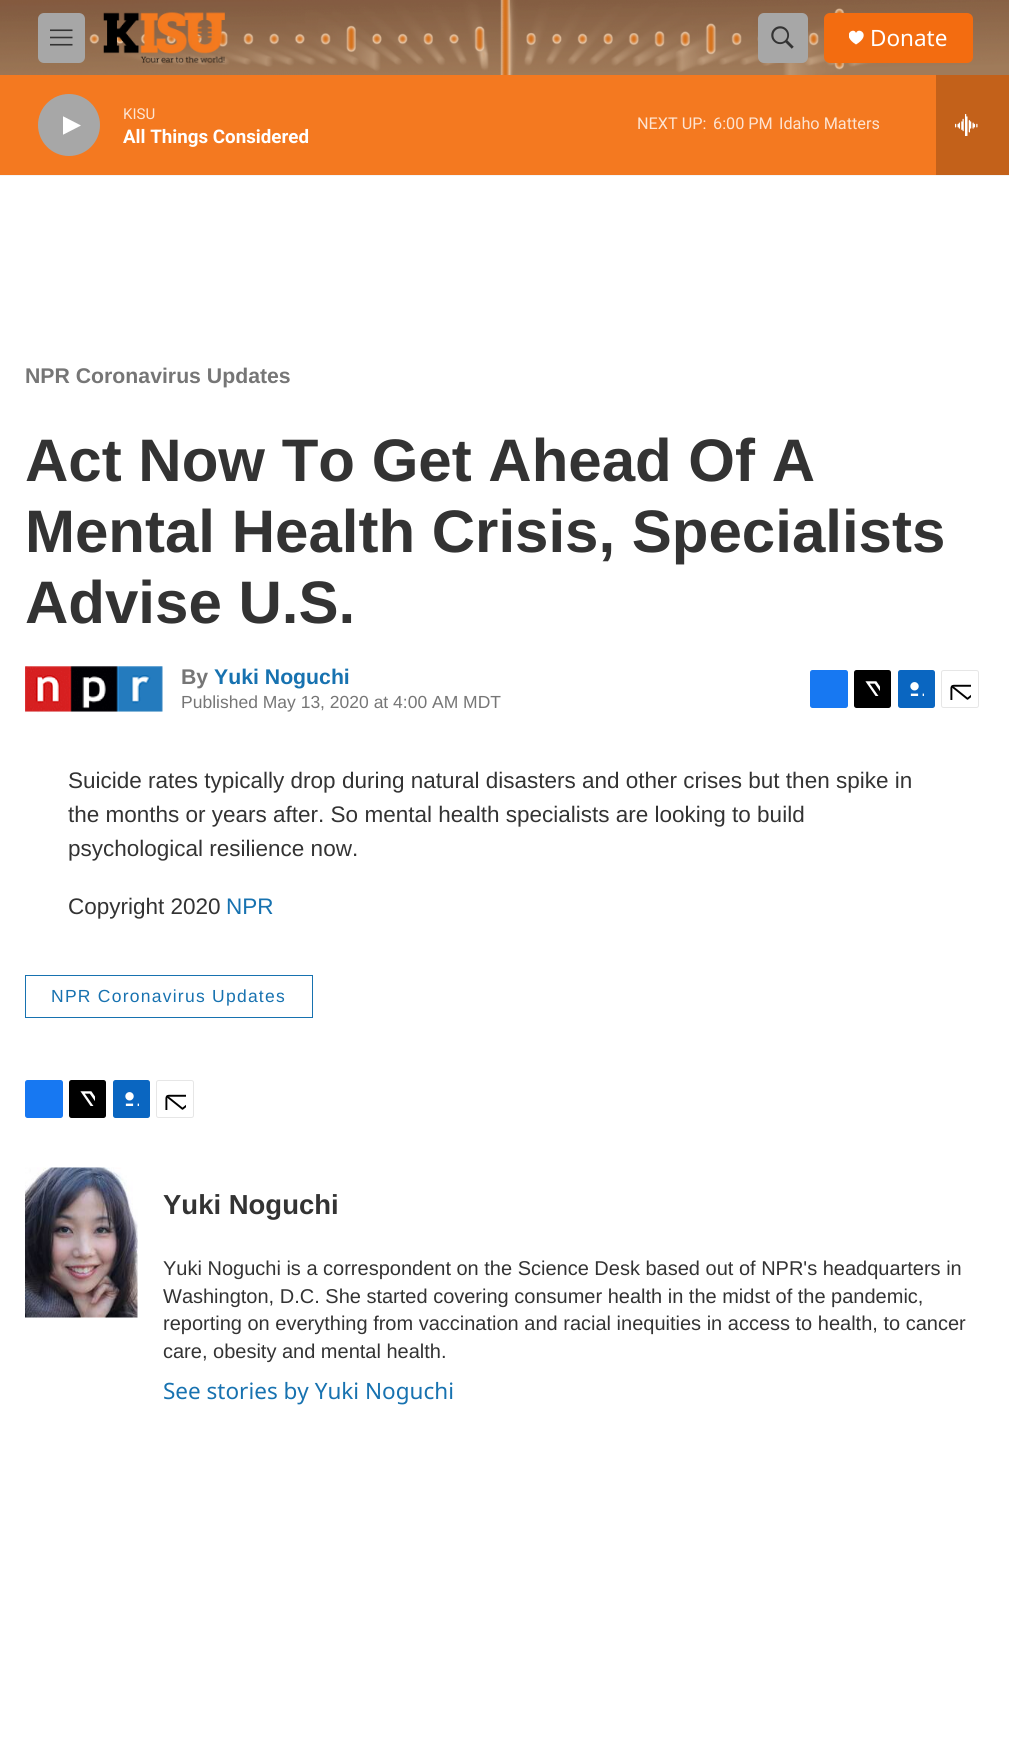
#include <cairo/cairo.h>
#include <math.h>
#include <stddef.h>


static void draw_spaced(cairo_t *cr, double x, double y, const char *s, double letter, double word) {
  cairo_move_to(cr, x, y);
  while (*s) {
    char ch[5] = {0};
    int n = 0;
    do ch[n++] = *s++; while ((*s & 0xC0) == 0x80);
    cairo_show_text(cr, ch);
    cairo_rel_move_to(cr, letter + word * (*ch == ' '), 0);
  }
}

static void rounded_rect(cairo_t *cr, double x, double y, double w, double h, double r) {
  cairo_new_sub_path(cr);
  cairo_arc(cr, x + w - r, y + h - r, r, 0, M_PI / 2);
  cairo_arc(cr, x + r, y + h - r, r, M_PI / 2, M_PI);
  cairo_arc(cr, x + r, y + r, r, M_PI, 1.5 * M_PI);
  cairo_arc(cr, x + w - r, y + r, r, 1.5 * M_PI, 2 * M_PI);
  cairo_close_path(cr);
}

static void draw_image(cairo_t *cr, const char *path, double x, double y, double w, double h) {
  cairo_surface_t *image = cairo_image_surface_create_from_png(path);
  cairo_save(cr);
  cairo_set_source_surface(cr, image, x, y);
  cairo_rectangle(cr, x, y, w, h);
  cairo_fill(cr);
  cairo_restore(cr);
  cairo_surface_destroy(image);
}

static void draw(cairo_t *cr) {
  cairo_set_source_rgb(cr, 1, 1, 1);
  cairo_paint(cr);
  cairo_set_source_rgb(cr, 245 / 255.0, 245 / 255.0, 245 / 255.0);
  cairo_rectangle(cr, 0, 175, 1009, 1);
  cairo_fill(cr);
  draw_image(cr, "images/1.png", 0, 0, 1009, 75);
  cairo_set_source_rgb(cr, 167 / 255.0, 167 / 255.0, 167 / 255.0);
  rounded_rect(cr, 38, 13, 47, 50, 6);
  cairo_fill(cr);
  draw_image(cr, "images/2.png", 50, 29, 23, 17);
  draw_image(cr, "images/3.png", 103, 12, 122, 51);
  rounded_rect(cr, 758, 13, 50, 50, 6);
  cairo_fill(cr);
  draw_image(cr, "images/4.png", 771, 26, 23, 23);
  cairo_set_source_rgb(cr, 243 / 255.0, 108 / 255.0, 16 / 255.0);
  rounded_rect(cr, 824, 13, 149, 50, 6);
  cairo_fill(cr);
  cairo_save(cr);
  cairo_rectangle(cr, 849, 30, 15, 15);
  cairo_clip(cr);
  cairo_set_source_rgb(cr, 1, 1, 1);
  cairo_new_path(cr);
  cairo_move_to(cr, 856, 33);
  cairo_curve_to(cr, 854, 26.5, 840.5, 35, 856, 44.5);
  cairo_curve_to(cr, 872, 35, 858.5, 26.5, 856, 33);
  cairo_close_path(cr);
  cairo_fill(cr);
  cairo_restore(cr);
  cairo_set_source_rgb(cr, 244 / 255.0, 121 / 255.0, 32 / 255.0);
  cairo_rectangle(cr, 0, 75, 936, 100);
  cairo_fill(cr);
  cairo_set_source_rgb(cr, 167 / 255.0, 167 / 255.0, 167 / 255.0);
  cairo_arc(cr, 69, 125, 31, 0, 2 * M_PI);
  cairo_fill(cr);
  cairo_save(cr);
  cairo_rectangle(cr, 63, 114, 18, 24);
  cairo_clip(cr);
  cairo_set_source_rgb(cr, 1, 1, 1);
  cairo_new_path(cr);
  cairo_move_to(cr, 62.5, 116);
  cairo_line_to(cr, 81, 125.5);
  cairo_line_to(cr, 62.5, 135);
  cairo_close_path(cr);
  cairo_fill(cr);
  cairo_restore(cr);
  cairo_set_source_rgb(cr, 195 / 255.0, 97 / 255.0, 26 / 255.0);
  cairo_rectangle(cr, 936, 75, 73, 100);
  cairo_fill(cr);
  draw_image(cr, "images/5.png", 955, 114, 23, 22);
  draw_image(cr, "images/6.png", 25, 666, 138, 47);
  cairo_set_source_rgb(cr, 23 / 255.0, 120 / 255.0, 242 / 255.0);
  rounded_rect(cr, 810, 670, 38, 38, 2.5);
  cairo_fill(cr);
  cairo_set_source_rgb(cr, 0, 0, 0);
  rounded_rect(cr, 854, 670, 37, 38, 2.5);
  cairo_fill(cr);
  draw_image(cr, "images/7.png", 865, 681, 15, 15);
  cairo_set_source_rgb(cr, 10 / 255.0, 102 / 255.0, 193 / 255.0);
  rounded_rect(cr, 898, 670, 37, 38, 2.5);
  cairo_fill(cr);
  draw_image(cr, "images/8.png", 910, 682, 14, 14);
  rounded_rect(cr, 941.5, 670.5, 37, 37, 2);
  cairo_set_source_rgb(cr, 230 / 255.0, 230 / 255.0, 230 / 255.0);
  cairo_set_line_width(cr, 1);
  cairo_stroke(cr);
  draw_image(cr, "images/9.png", 950, 684, 21, 16);
  cairo_rectangle(cr, 25.5, 975.5, 287, 42);
  cairo_set_source_rgb(cr, 23 / 255.0, 114 / 255.0, 176 / 255.0);
  cairo_stroke(cr);
  cairo_set_source_rgb(cr, 23 / 255.0, 120 / 255.0, 242 / 255.0);
  rounded_rect(cr, 25, 1080, 38, 38, 2.5);
  cairo_fill(cr);
  cairo_set_source_rgb(cr, 0, 0, 0);
  rounded_rect(cr, 69, 1080, 37, 38, 2.5);
  cairo_fill(cr);
  draw_image(cr, "images/7.png", 80, 1091, 15, 15);
  cairo_set_source_rgb(cr, 10 / 255.0, 102 / 255.0, 193 / 255.0);
  rounded_rect(cr, 113, 1080, 37, 38, 2.5);
  cairo_fill(cr);
  draw_image(cr, "images/8.png", 125, 1092, 14, 14);
  rounded_rect(cr, 156.5, 1080.5, 37, 37, 2);
  cairo_set_source_rgb(cr, 230 / 255.0, 230 / 255.0, 230 / 255.0);
  cairo_stroke(cr);
  draw_image(cr, "images/9.png", 165, 1094, 21, 16);
  draw_image(cr, "images/10.png", 25, 1167, 113, 151);
  cairo_select_font_face(cr, "Noto Sans", CAIRO_FONT_SLANT_NORMAL, CAIRO_FONT_WEIGHT_NORMAL);
  cairo_set_font_size(cr, 22.5);
  cairo_set_source_rgb(cr, 1, 1, 1);
  cairo_move_to(cr, 870, 46);
  cairo_show_text(cr, "Donate");
  cairo_select_font_face(cr, "Roboto", CAIRO_FONT_SLANT_NORMAL, CAIRO_FONT_WEIGHT_NORMAL);
  cairo_set_font_size(cr, 15);
  cairo_set_source_rgb(cr, 253 / 255.0, 228 / 255.0, 210 / 255.0);
  cairo_move_to(cr, 123, 119);
  cairo_show_text(cr, "KISU");
  cairo_select_font_face(cr, "Roboto", CAIRO_FONT_SLANT_NORMAL, CAIRO_FONT_WEIGHT_BOLD);
  cairo_set_font_size(cr, 18.75);
  cairo_set_source_rgb(cr, 1, 1, 1);
  cairo_move_to(cr, 123, 143);
  cairo_show_text(cr, "All Things Considered");
  cairo_select_font_face(cr, "Roboto", CAIRO_FONT_SLANT_NORMAL, CAIRO_FONT_WEIGHT_NORMAL);
  cairo_set_font_size(cr, 16.25);
  cairo_set_source_rgb(cr, 253 / 255.0, 228 / 255.0, 210 / 255.0);
  cairo_move_to(cr, 637, 129);
  cairo_show_text(cr, "NEXT UP:");
  cairo_move_to(cr, 713, 129);
  cairo_show_text(cr, "6:00 PM");
  cairo_move_to(cr, 779, 129);
  cairo_show_text(cr, "Idaho Matters");
  cairo_select_font_face(cr, "Liberation Sans", CAIRO_FONT_SLANT_NORMAL, CAIRO_FONT_WEIGHT_BOLD);
  cairo_set_font_size(cr, 21.25);
  cairo_set_source_rgb(cr, 118 / 255.0, 118 / 255.0, 118 / 255.0);
  cairo_move_to(cr, 25, 383);
  cairo_show_text(cr, "NPR Coronavirus Updates");
  cairo_set_font_size(cr, 60);
  cairo_set_source_rgb(cr, 51 / 255.0, 51 / 255.0, 51 / 255.0);
  cairo_move_to(cr, 25, 481);
  cairo_show_text(cr, "Act Now To Get Ahead Of A");
  cairo_move_to(cr, 25, 552);
  cairo_show_text(cr, "Mental Health Crisis, Specialists");
  cairo_move_to(cr, 25, 623);
  cairo_show_text(cr, "Advise U.S.");
  cairo_set_font_size(cr, 21.25);
  cairo_set_source_rgb(cr, 118 / 255.0, 118 / 255.0, 118 / 255.0);
  cairo_move_to(cr, 181, 684);
  cairo_show_text(cr, "By");
  cairo_set_source_rgb(cr, 23 / 255.0, 114 / 255.0, 176 / 255.0);
  cairo_move_to(cr, 214, 684);
  cairo_show_text(cr, "Yuki Noguchi");
  cairo_select_font_face(cr, "Liberation Sans", CAIRO_FONT_SLANT_NORMAL, CAIRO_FONT_WEIGHT_NORMAL);
  cairo_set_font_size(cr, 17.5);
  cairo_set_source_rgb(cr, 118 / 255.0, 118 / 255.0, 118 / 255.0);
  cairo_move_to(cr, 181, 708);
  cairo_show_text(cr, "Published May 13, 2020 at 4:00 AM MDT");
  cairo_set_font_size(cr, 22.5);
  cairo_set_source_rgb(cr, 51 / 255.0, 51 / 255.0, 51 / 255.0);
  cairo_move_to(cr, 68, 788);
  cairo_show_text(cr, "Suicide rates typically drop during natural disasters and other crises but then spike in");
  cairo_move_to(cr, 68, 822);
  cairo_show_text(cr, "the months or years after. So mental health specialists are looking to build");
  cairo_move_to(cr, 68, 856);
  cairo_show_text(cr, "psychological resilience now.");
  cairo_move_to(cr, 68, 914);
  cairo_show_text(cr, "Copyright 2020");
  cairo_set_source_rgb(cr, 23 / 255.0, 114 / 255.0, 176 / 255.0);
  cairo_move_to(cr, 226, 914);
  cairo_show_text(cr, "NPR");
  cairo_set_font_size(cr, 17.5);
  draw_spaced(cr, 51, 1002, "NPR Coronavirus Updates", 1.25, 0);
  cairo_select_font_face(cr, "Liberation Sans", CAIRO_FONT_SLANT_NORMAL, CAIRO_FONT_WEIGHT_BOLD);
  cairo_set_font_size(cr, 27.5);
  cairo_set_source_rgb(cr, 51 / 255.0, 51 / 255.0, 51 / 255.0);
  cairo_move_to(cr, 163, 1214);
  cairo_show_text(cr, "Yuki Noguchi");
  cairo_select_font_face(cr, "Liberation Sans", CAIRO_FONT_SLANT_NORMAL, CAIRO_FONT_WEIGHT_NORMAL);
  cairo_set_font_size(cr, 20);
  cairo_move_to(cr, 163, 1275);
  cairo_show_text(cr, "Yuki Noguchi is a correspondent on the Science Desk based out of NPR's headquarters in");
  cairo_move_to(cr, 163, 1303);
  cairo_show_text(cr, "Washington, D.C. She started covering consumer health in the midst of the pandemic,");
  cairo_move_to(cr, 163, 1330);
  cairo_show_text(cr, "reporting on everything from vaccination and racial inequities in access to health, to cancer");
  cairo_move_to(cr, 163, 1358);
  cairo_show_text(cr, "care, obesity and mental health.");
  cairo_select_font_face(cr, "Noto Sans", CAIRO_FONT_SLANT_NORMAL, CAIRO_FONT_WEIGHT_NORMAL);
  cairo_set_font_size(cr, 22.5);
  cairo_set_source_rgb(cr, 23 / 255.0, 114 / 255.0, 176 / 255.0);
  cairo_move_to(cr, 163, 1399);
  cairo_show_text(cr, "See stories by Yuki Noguchi");
}

int main(void) {
  cairo_surface_t *surface = cairo_image_surface_create(CAIRO_FORMAT_RGB24, 1009, 1749);
  cairo_t *cr = cairo_create(surface);
  cairo_font_options_t *options = cairo_font_options_create();
  cairo_font_options_set_hint_metrics(options, CAIRO_HINT_METRICS_OFF);
  cairo_font_options_set_hint_style(options, CAIRO_HINT_STYLE_NONE);
  cairo_set_font_options(cr, options);
  cairo_set_miter_limit(cr, 4);
  draw(cr);
  cairo_surface_write_to_png(surface, "out.png");
  cairo_font_options_destroy(options);
  cairo_destroy(cr);
  cairo_surface_destroy(surface);
  return 0;
}
